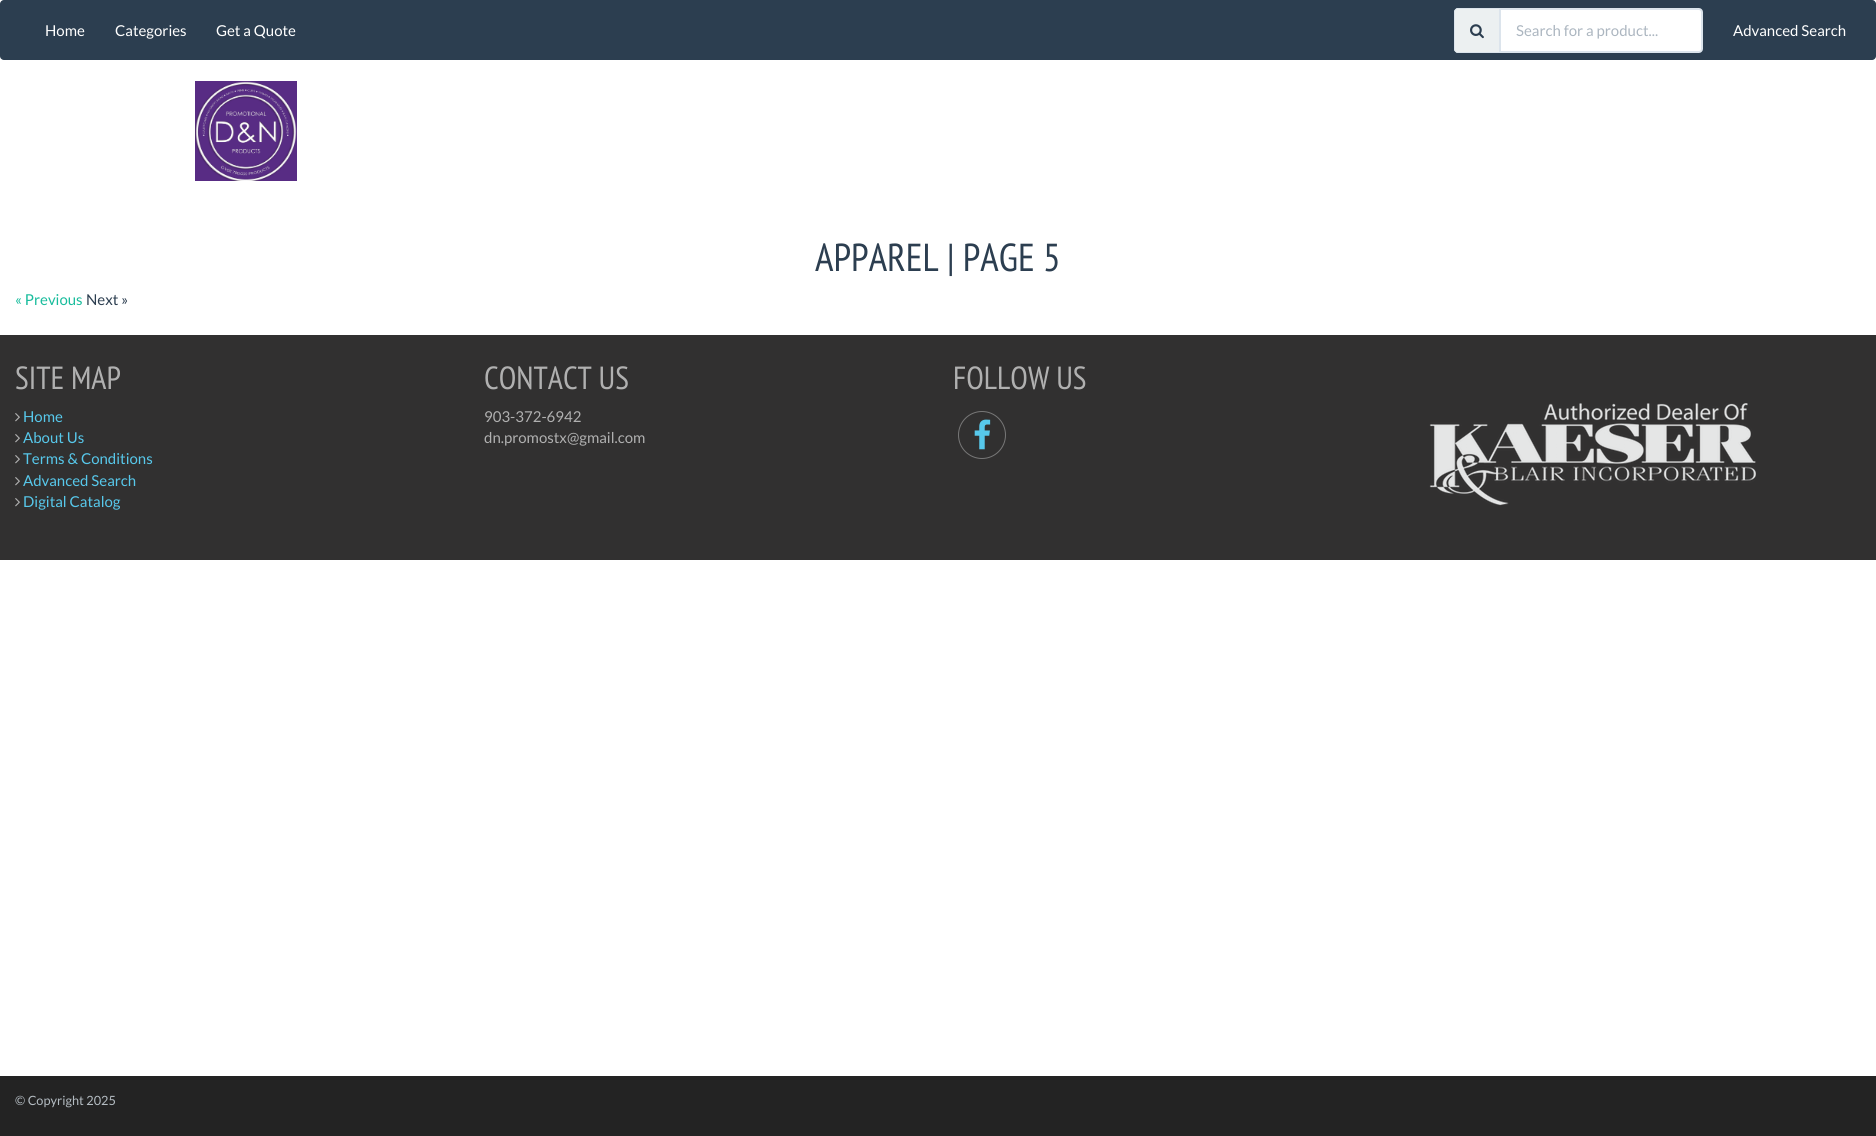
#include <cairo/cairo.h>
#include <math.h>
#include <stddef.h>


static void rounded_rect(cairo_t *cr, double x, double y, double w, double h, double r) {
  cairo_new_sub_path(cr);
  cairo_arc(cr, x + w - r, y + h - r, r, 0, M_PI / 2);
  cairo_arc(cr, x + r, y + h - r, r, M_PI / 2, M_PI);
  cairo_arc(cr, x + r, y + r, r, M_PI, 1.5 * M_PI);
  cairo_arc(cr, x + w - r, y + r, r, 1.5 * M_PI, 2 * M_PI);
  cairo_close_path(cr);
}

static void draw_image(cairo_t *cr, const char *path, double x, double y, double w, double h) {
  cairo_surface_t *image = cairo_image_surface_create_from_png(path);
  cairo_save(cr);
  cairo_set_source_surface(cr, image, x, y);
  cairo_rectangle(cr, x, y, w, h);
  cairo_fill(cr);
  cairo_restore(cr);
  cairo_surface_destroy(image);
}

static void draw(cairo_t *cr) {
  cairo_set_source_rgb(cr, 1, 1, 1);
  cairo_paint(cr);
  cairo_set_source_rgb(cr, 44 / 255.0, 62 / 255.0, 80 / 255.0);
  rounded_rect(cr, 0, 0, 1876, 60, 4);
  cairo_fill(cr);
  cairo_set_source_rgb(cr, 236 / 255.0, 240 / 255.0, 241 / 255.0);
  cairo_new_path(cr);
  cairo_move_to(cr, 1458, 8);
  cairo_line_to(cr, 1499, 8);
  cairo_line_to(cr, 1499, 53);
  cairo_line_to(cr, 1458, 53);
  cairo_curve_to(cr, 1456, 53, 1454, 51, 1454, 49);
  cairo_line_to(cr, 1454, 12);
  cairo_curve_to(cr, 1454, 10, 1456, 8, 1458, 8);
  cairo_close_path(cr);
  cairo_fill(cr);
  cairo_set_source_rgb(cr, 220 / 255.0, 228 / 255.0, 236 / 255.0);
  cairo_set_fill_rule(cr, CAIRO_FILL_RULE_EVEN_ODD);
  cairo_new_path(cr);
  cairo_move_to(cr, 1458, 8);
  cairo_line_to(cr, 1499, 8);
  cairo_line_to(cr, 1499, 53);
  cairo_line_to(cr, 1458, 53);
  cairo_curve_to(cr, 1456, 53, 1454, 51, 1454, 49);
  cairo_line_to(cr, 1454, 12);
  cairo_curve_to(cr, 1454, 10, 1456, 8, 1458, 8);
  cairo_close_path(cr);
  cairo_move_to(cr, 1458, 9);
  cairo_line_to(cr, 1499, 9);
  cairo_line_to(cr, 1499, 52);
  cairo_line_to(cr, 1458, 52);
  cairo_curve_to(cr, 1456, 52, 1455, 51, 1455, 49);
  cairo_line_to(cr, 1455, 12);
  cairo_curve_to(cr, 1455, 10, 1456, 9, 1458, 9);
  cairo_close_path(cr);
  cairo_fill(cr);
  draw_image(cr, "images/1.png", 1470, 24, 14, 15);
  cairo_set_source_rgb(cr, 1, 1, 1);
  cairo_new_path(cr);
  cairo_move_to(cr, 1500, 9);
  cairo_line_to(cr, 1699, 9);
  cairo_curve_to(cr, 1700.5, 9, 1702, 10.5, 1702, 12);
  cairo_line_to(cr, 1702, 49);
  cairo_curve_to(cr, 1702, 50.5, 1700.5, 52, 1699, 52);
  cairo_line_to(cr, 1500, 52);
  cairo_close_path(cr);
  cairo_fill_preserve(cr);
  cairo_set_source_rgb(cr, 220 / 255.0, 228 / 255.0, 236 / 255.0);
  cairo_stroke(cr);
  draw_image(cr, "images/2.png", 195, 81, 102, 100);
  cairo_set_source_rgb(cr, 49 / 255.0, 48 / 255.0, 48 / 255.0);
  cairo_rectangle(cr, 0, 335, 1876, 225);
  cairo_fill(cr);
  draw_image(cr, "images/3.png", 15, 413, 5, 9);
  draw_image(cr, "images/3.png", 15, 434, 5, 9);
  draw_image(cr, "images/3.png", 15, 455, 5, 9);
  draw_image(cr, "images/3.png", 15, 477, 5, 9);
  draw_image(cr, "images/3.png", 15, 498, 5, 9);
  cairo_arc(cr, 982, 435, 23.5, 0, 2 * M_PI);
  cairo_set_source_rgb(cr, 119 / 255.0, 119 / 255.0, 119 / 255.0);
  cairo_set_line_width(cr, 1);
  cairo_stroke(cr);
  draw_image(cr, "images/4.png", 974, 419, 17, 31);
  draw_image(cr, "images/5.png", 1429, 403, 327, 103);
  cairo_set_source_rgb(cr, 35 / 255.0, 35 / 255.0, 35 / 255.0);
  cairo_rectangle(cr, 0, 1076, 1876, 60);
  cairo_fill(cr);
  cairo_select_font_face(cr, "Lato", CAIRO_FONT_SLANT_NORMAL, CAIRO_FONT_WEIGHT_NORMAL);
  cairo_set_font_size(cr, 15);
  cairo_set_source_rgb(cr, 1, 1, 1);
  cairo_move_to(cr, 45, 36);
  cairo_show_text(cr, "Home");
  cairo_move_to(cr, 115, 36);
  cairo_show_text(cr, "Categories");
  cairo_move_to(cr, 216, 36);
  cairo_show_text(cr, "Get a Quote");
  cairo_set_source_rgb(cr, 172 / 255.0, 182 / 255.0, 192 / 255.0);
  cairo_move_to(cr, 1516, 36);
  cairo_show_text(cr, "Search for a product...");
  cairo_set_source_rgb(cr, 1, 1, 1);
  cairo_move_to(cr, 1733, 36);
  cairo_show_text(cr, "Advanced Search");
  cairo_select_font_face(cr, "PT Sans Narrow", CAIRO_FONT_SLANT_NORMAL, CAIRO_FONT_WEIGHT_NORMAL);
  cairo_set_font_size(cr, 39);
  cairo_set_source_rgb(cr, 44 / 255.0, 62 / 255.0, 80 / 255.0);
  cairo_move_to(cr, 815, 271);
  cairo_show_text(cr, "APPAREL | PAGE 5");
  cairo_select_font_face(cr, "Lato", CAIRO_FONT_SLANT_NORMAL, CAIRO_FONT_WEIGHT_NORMAL);
  cairo_set_font_size(cr, 15);
  cairo_set_source_rgb(cr, 24 / 255.0, 188 / 255.0, 156 / 255.0);
  cairo_move_to(cr, 15, 305);
  cairo_show_text(cr, "« Previous");
  cairo_set_source_rgb(cr, 44 / 255.0, 62 / 255.0, 80 / 255.0);
  cairo_move_to(cr, 86, 305);
  cairo_show_text(cr, "Next »");
  cairo_select_font_face(cr, "PT Sans Narrow", CAIRO_FONT_SLANT_NORMAL, CAIRO_FONT_WEIGHT_NORMAL);
  cairo_set_font_size(cr, 32);
  cairo_set_source_rgb(cr, 176 / 255.0, 176 / 255.0, 176 / 255.0);
  cairo_move_to(cr, 15, 389);
  cairo_show_text(cr, "SITE MAP");
  cairo_select_font_face(cr, "Lato", CAIRO_FONT_SLANT_NORMAL, CAIRO_FONT_WEIGHT_NORMAL);
  cairo_set_font_size(cr, 15);
  cairo_set_source_rgb(cr, 87 / 255.0, 200 / 255.0, 235 / 255.0);
  cairo_move_to(cr, 23, 422);
  cairo_show_text(cr, "Home");
  cairo_move_to(cr, 23, 443);
  cairo_show_text(cr, "About Us");
  cairo_move_to(cr, 23, 464);
  cairo_show_text(cr, "Terms & Conditions");
  cairo_move_to(cr, 23, 486);
  cairo_show_text(cr, "Advanced Search");
  cairo_move_to(cr, 23, 507);
  cairo_show_text(cr, "Digital Catalog");
  cairo_select_font_face(cr, "PT Sans Narrow", CAIRO_FONT_SLANT_NORMAL, CAIRO_FONT_WEIGHT_NORMAL);
  cairo_set_font_size(cr, 32);
  cairo_set_source_rgb(cr, 176 / 255.0, 176 / 255.0, 176 / 255.0);
  cairo_move_to(cr, 484, 389);
  cairo_show_text(cr, "CONTACT US");
  cairo_select_font_face(cr, "Lato", CAIRO_FONT_SLANT_NORMAL, CAIRO_FONT_WEIGHT_NORMAL);
  cairo_set_font_size(cr, 15);
  cairo_move_to(cr, 484, 422);
  cairo_show_text(cr, "903-372-6942");
  cairo_move_to(cr, 484, 443);
  cairo_show_text(cr, "dn.promostx@gmail.com");
  cairo_select_font_face(cr, "PT Sans Narrow", CAIRO_FONT_SLANT_NORMAL, CAIRO_FONT_WEIGHT_NORMAL);
  cairo_set_font_size(cr, 32);
  cairo_move_to(cr, 953, 389);
  cairo_show_text(cr, "FOLLOW US");
  cairo_select_font_face(cr, "Lato", CAIRO_FONT_SLANT_NORMAL, CAIRO_FONT_WEIGHT_NORMAL);
  cairo_set_font_size(cr, 12.75);
  cairo_set_source_rgb(cr, 180 / 255.0, 188 / 255.0, 194 / 255.0);
  cairo_move_to(cr, 15, 1105);
  cairo_show_text(cr, "© Copyright 2025");
}

int main(void) {
  cairo_surface_t *surface = cairo_image_surface_create(CAIRO_FORMAT_RGB24, 1876, 1136);
  cairo_t *cr = cairo_create(surface);
  cairo_font_options_t *options = cairo_font_options_create();
  cairo_font_options_set_hint_metrics(options, CAIRO_HINT_METRICS_OFF);
  cairo_font_options_set_hint_style(options, CAIRO_HINT_STYLE_NONE);
  cairo_set_font_options(cr, options);
  cairo_set_miter_limit(cr, 4);
  draw(cr);
  cairo_surface_write_to_png(surface, "out.png");
  cairo_font_options_destroy(options);
  cairo_destroy(cr);
  cairo_surface_destroy(surface);
  return 0;
}
